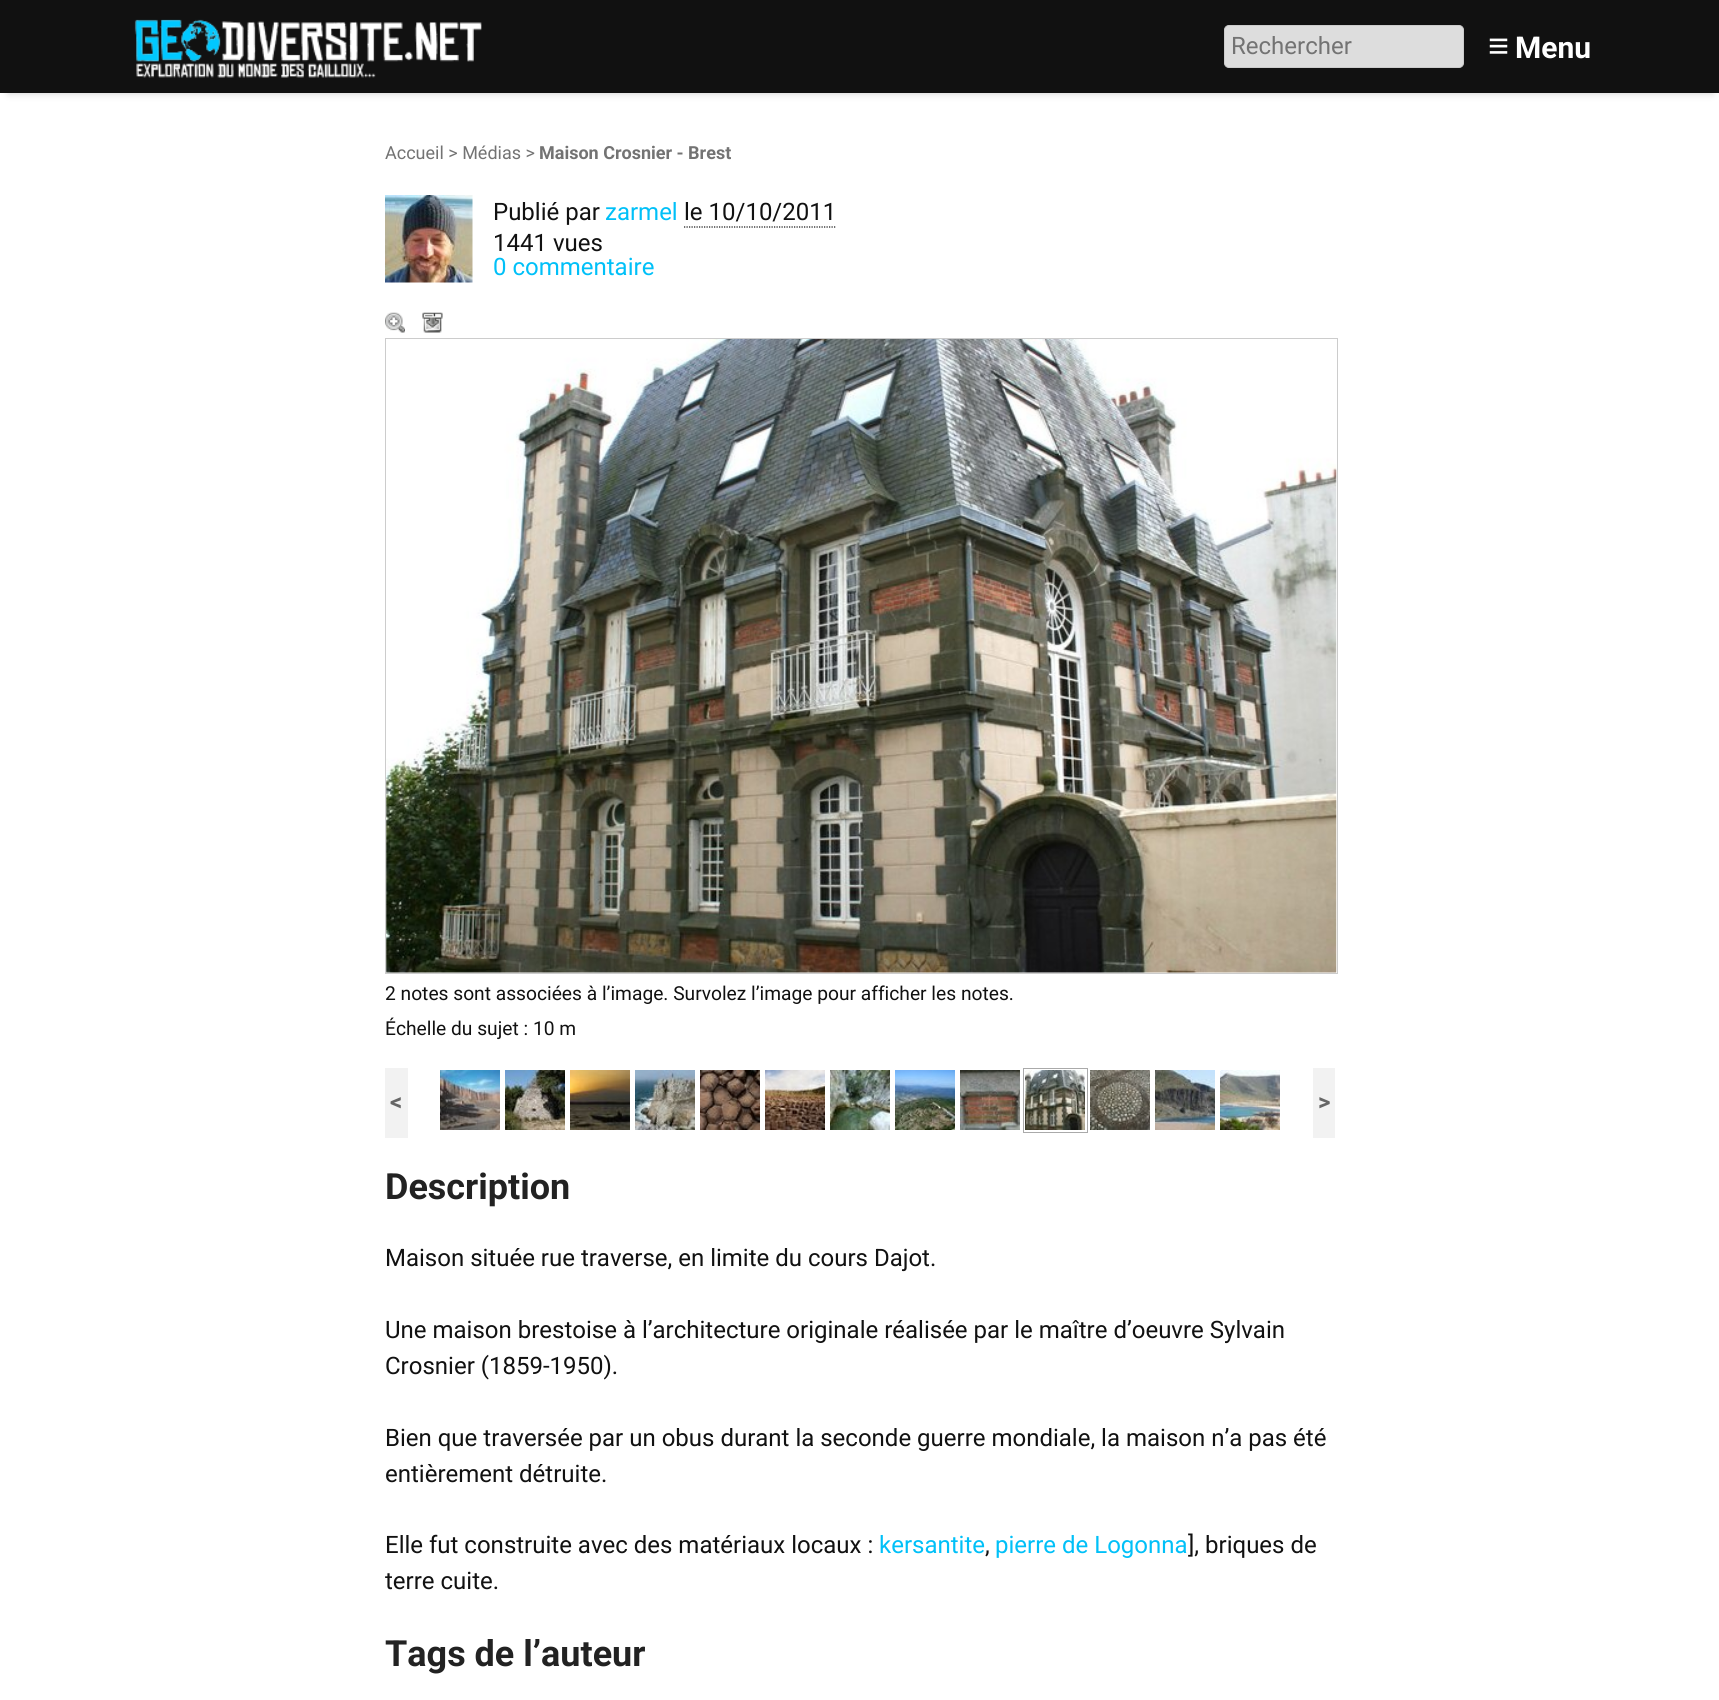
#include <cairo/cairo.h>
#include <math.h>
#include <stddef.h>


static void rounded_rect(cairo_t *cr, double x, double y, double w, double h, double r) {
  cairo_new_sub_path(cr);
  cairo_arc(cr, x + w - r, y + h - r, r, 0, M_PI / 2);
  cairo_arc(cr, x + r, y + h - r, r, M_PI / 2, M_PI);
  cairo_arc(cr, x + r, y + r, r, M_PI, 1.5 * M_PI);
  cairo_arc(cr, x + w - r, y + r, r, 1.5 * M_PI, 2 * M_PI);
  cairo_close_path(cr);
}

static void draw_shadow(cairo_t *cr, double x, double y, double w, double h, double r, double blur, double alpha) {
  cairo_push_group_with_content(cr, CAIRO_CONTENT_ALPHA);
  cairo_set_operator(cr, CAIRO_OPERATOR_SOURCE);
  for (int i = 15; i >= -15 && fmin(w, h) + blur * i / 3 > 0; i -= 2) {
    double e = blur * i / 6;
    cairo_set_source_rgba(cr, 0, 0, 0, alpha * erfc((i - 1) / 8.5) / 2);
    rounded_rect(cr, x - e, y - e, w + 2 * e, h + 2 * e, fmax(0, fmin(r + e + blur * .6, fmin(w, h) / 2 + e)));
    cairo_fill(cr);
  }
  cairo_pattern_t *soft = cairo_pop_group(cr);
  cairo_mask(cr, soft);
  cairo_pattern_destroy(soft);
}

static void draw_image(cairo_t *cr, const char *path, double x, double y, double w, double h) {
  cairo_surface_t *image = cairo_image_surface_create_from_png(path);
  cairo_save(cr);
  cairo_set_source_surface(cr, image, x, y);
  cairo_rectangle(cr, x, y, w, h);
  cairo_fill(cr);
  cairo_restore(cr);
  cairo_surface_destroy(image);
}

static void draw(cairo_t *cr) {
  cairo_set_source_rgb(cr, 1, 1, 1);
  cairo_paint(cr);
  cairo_set_source_rgb(cr, 0, 0, 0);
  draw_shadow(cr, 8, 15, 1705, 78, 0, 4, 0.2);
  cairo_set_source_rgb(cr, 17 / 255.0, 17 / 255.0, 17 / 255.0);
  cairo_rectangle(cr, 0, 0, 1719, 93);
  cairo_fill(cr);
  draw_image(cr, "images/1.png", 134, 19, 348, 59);
  cairo_set_source_rgb(cr, 221 / 255.0, 221 / 255.0, 221 / 255.0);
  rounded_rect(cr, 1224.5, 25.5, 239, 42, 4.5);
  cairo_fill_preserve(cr);
  cairo_set_source_rgb(cr, 204 / 255.0, 204 / 255.0, 204 / 255.0);
  cairo_set_line_width(cr, 1);
  cairo_stroke(cr);
  draw_image(cr, "images/2.png", 385, 195, 88, 88);
  cairo_new_path(cr);
  cairo_move_to(cr, 684, 227);
  cairo_line_to(cr, 836, 227);
  cairo_set_source_rgb(cr, 17 / 255.0, 17 / 255.0, 17 / 255.0);
  cairo_set_line_width(cr, 1.2);
  cairo_set_dash(cr, (double[]){1.25, 1.25}, 2, 0);
  cairo_stroke(cr);
  draw_image(cr, "images/3.png", 385, 312, 20, 21);
  draw_image(cr, "images/4.png", 422, 312, 21, 21);
  draw_image(cr, "images/5.png", 386, 339, 951, 634);
  cairo_rectangle(cr, 385.5, 338.5, 952, 635);
  cairo_set_source_rgb(cr, 204 / 255.0, 204 / 255.0, 204 / 255.0);
  cairo_set_line_width(cr, 1);
  cairo_set_dash(cr, NULL, 0, 0);
  cairo_stroke(cr);
  draw_image(cr, "images/6.png", 440, 1070, 60, 60);
  draw_image(cr, "images/7.png", 505, 1070, 60, 60);
  draw_image(cr, "images/8.png", 570, 1070, 60, 60);
  draw_image(cr, "images/9.png", 635, 1070, 60, 60);
  draw_image(cr, "images/10.png", 700, 1070, 60, 60);
  draw_image(cr, "images/11.png", 765, 1070, 60, 60);
  draw_image(cr, "images/12.png", 830, 1070, 60, 60);
  draw_image(cr, "images/13.png", 895, 1070, 60, 60);
  draw_image(cr, "images/14.png", 960, 1070, 60, 60);
  cairo_rectangle(cr, 1023.5, 1068.5, 64, 64);
  cairo_set_source_rgb(cr, 170 / 255.0, 170 / 255.0, 170 / 255.0);
  cairo_stroke(cr);
  cairo_set_source_rgb(cr, 242 / 255.0, 242 / 255.0, 242 / 255.0);
  cairo_rectangle(cr, 385, 1068, 23, 70);
  cairo_fill(cr);
  draw_image(cr, "images/15.png", 1025, 1070, 60, 60);
  draw_image(cr, "images/16.png", 1090, 1070, 60, 60);
  draw_image(cr, "images/17.png", 1155, 1070, 60, 60);
  draw_image(cr, "images/18.png", 1220, 1070, 60, 60);
  cairo_rectangle(cr, 1313, 1068, 22, 70);
  cairo_fill(cr);
  cairo_select_font_face(cr, "Roboto", CAIRO_FONT_SLANT_NORMAL, CAIRO_FONT_WEIGHT_NORMAL);
  cairo_set_font_size(cr, 24);
  cairo_set_source_rgb(cr, 115 / 255.0, 115 / 255.0, 115 / 255.0);
  cairo_move_to(cr, 1231, 54);
  cairo_show_text(cr, "Rechercher");
  cairo_select_font_face(cr, "Liberation Sans", CAIRO_FONT_SLANT_NORMAL, CAIRO_FONT_WEIGHT_BOLD);
  cairo_set_font_size(cr, 36);
  cairo_set_source_rgb(cr, 1, 1, 1);
  cairo_move_to(cr, 1488, 58);
  cairo_show_text(cr, "≡");
  cairo_select_font_face(cr, "Roboto", CAIRO_FONT_SLANT_NORMAL, CAIRO_FONT_WEIGHT_BOLD);
  cairo_set_font_size(cr, 30);
  cairo_move_to(cr, 1515, 58);
  cairo_show_text(cr, "Menu");
  cairo_select_font_face(cr, "Roboto", CAIRO_FONT_SLANT_NORMAL, CAIRO_FONT_WEIGHT_NORMAL);
  cairo_set_font_size(cr, 18);
  cairo_set_source_rgb(cr, 115 / 255.0, 115 / 255.0, 115 / 255.0);
  cairo_move_to(cr, 385, 159);
  cairo_show_text(cr, "Accueil > Médias >");
  cairo_select_font_face(cr, "Roboto", CAIRO_FONT_SLANT_NORMAL, CAIRO_FONT_WEIGHT_BOLD);
  cairo_move_to(cr, 539, 159);
  cairo_show_text(cr, "Maison Crosnier - Brest");
  cairo_select_font_face(cr, "Roboto", CAIRO_FONT_SLANT_NORMAL, CAIRO_FONT_WEIGHT_NORMAL);
  cairo_set_font_size(cr, 24);
  cairo_set_source_rgb(cr, 17 / 255.0, 17 / 255.0, 17 / 255.0);
  cairo_move_to(cr, 493, 220);
  cairo_show_text(cr, "Publié par");
  cairo_set_source_rgb(cr, 0, 192 / 255.0, 248 / 255.0);
  cairo_move_to(cr, 605, 220);
  cairo_show_text(cr, "zarmel");
  cairo_set_source_rgb(cr, 17 / 255.0, 17 / 255.0, 17 / 255.0);
  cairo_move_to(cr, 684, 220);
  cairo_show_text(cr, "le 10/10/2011");
  cairo_move_to(cr, 493, 251);
  cairo_show_text(cr, "1441 vues");
  cairo_set_source_rgb(cr, 0, 192 / 255.0, 248 / 255.0);
  cairo_move_to(cr, 493, 275);
  cairo_show_text(cr, "0 commentaire");
  cairo_set_font_size(cr, 19.2);
  cairo_set_source_rgb(cr, 17 / 255.0, 17 / 255.0, 17 / 255.0);
  cairo_move_to(cr, 385, 1000);
  cairo_show_text(cr, "2 notes sont associées à l’image. Survolez l’image pour afficher les notes.");
  cairo_move_to(cr, 385, 1035);
  cairo_show_text(cr, "Échelle du sujet : 10 m");
  cairo_select_font_face(cr, "Roboto", CAIRO_FONT_SLANT_NORMAL, CAIRO_FONT_WEIGHT_BOLD);
  cairo_set_font_size(cr, 24);
  cairo_set_source_rgb(cr, 102 / 255.0, 102 / 255.0, 102 / 255.0);
  cairo_move_to(cr, 390, 1110);
  cairo_show_text(cr, "<");
  cairo_move_to(cr, 1318, 1110);
  cairo_show_text(cr, ">");
  cairo_set_font_size(cr, 36);
  cairo_set_source_rgb(cr, 34 / 255.0, 34 / 255.0, 34 / 255.0);
  cairo_move_to(cr, 385, 1199);
  cairo_show_text(cr, "Description");
  cairo_select_font_face(cr, "Roboto", CAIRO_FONT_SLANT_NORMAL, CAIRO_FONT_WEIGHT_NORMAL);
  cairo_set_font_size(cr, 24);
  cairo_set_source_rgb(cr, 17 / 255.0, 17 / 255.0, 17 / 255.0);
  cairo_move_to(cr, 385, 1266);
  cairo_show_text(cr, "Maison située rue traverse, en limite du cours Dajot.");
  cairo_move_to(cr, 385, 1338);
  cairo_show_text(cr, "Une maison brestoise à l’architecture originale réalisée par le maître d’oeuvre Sylvain");
  cairo_move_to(cr, 385, 1374);
  cairo_show_text(cr, "Crosnier (1859-1950).");
  cairo_move_to(cr, 385, 1446);
  cairo_show_text(cr, "Bien que traversée par un obus durant la seconde guerre mondiale, la maison n’a pas été");
  cairo_move_to(cr, 385, 1482);
  cairo_show_text(cr, "entièrement détruite.");
  cairo_move_to(cr, 385, 1553);
  cairo_show_text(cr, "Elle fut construite avec des matériaux locaux :");
  cairo_set_source_rgb(cr, 0, 192 / 255.0, 248 / 255.0);
  cairo_move_to(cr, 879, 1553);
  cairo_show_text(cr, "kersantite");
  cairo_set_source_rgb(cr, 17 / 255.0, 17 / 255.0, 17 / 255.0);
  cairo_move_to(cr, 985, 1553);
  cairo_show_text(cr, ",");
  cairo_set_source_rgb(cr, 0, 192 / 255.0, 248 / 255.0);
  cairo_move_to(cr, 995, 1553);
  cairo_show_text(cr, "pierre de Logonna");
  cairo_set_source_rgb(cr, 17 / 255.0, 17 / 255.0, 17 / 255.0);
  cairo_move_to(cr, 1188, 1553);
  cairo_show_text(cr, "], briques de");
  cairo_move_to(cr, 385, 1589);
  cairo_show_text(cr, "terre cuite.");
  cairo_select_font_face(cr, "Roboto", CAIRO_FONT_SLANT_NORMAL, CAIRO_FONT_WEIGHT_BOLD);
  cairo_set_font_size(cr, 36);
  cairo_set_source_rgb(cr, 34 / 255.0, 34 / 255.0, 34 / 255.0);
  cairo_move_to(cr, 385, 1666);
  cairo_show_text(cr, "Tags de l’auteur");
}

int main(void) {
  cairo_surface_t *surface = cairo_image_surface_create(CAIRO_FORMAT_RGB24, 1719, 1700);
  cairo_t *cr = cairo_create(surface);
  cairo_font_options_t *options = cairo_font_options_create();
  cairo_font_options_set_hint_metrics(options, CAIRO_HINT_METRICS_OFF);
  cairo_font_options_set_hint_style(options, CAIRO_HINT_STYLE_NONE);
  cairo_set_font_options(cr, options);
  cairo_set_miter_limit(cr, 4);
  draw(cr);
  cairo_surface_write_to_png(surface, "out.png");
  cairo_font_options_destroy(options);
  cairo_destroy(cr);
  cairo_surface_destroy(surface);
  return 0;
}
